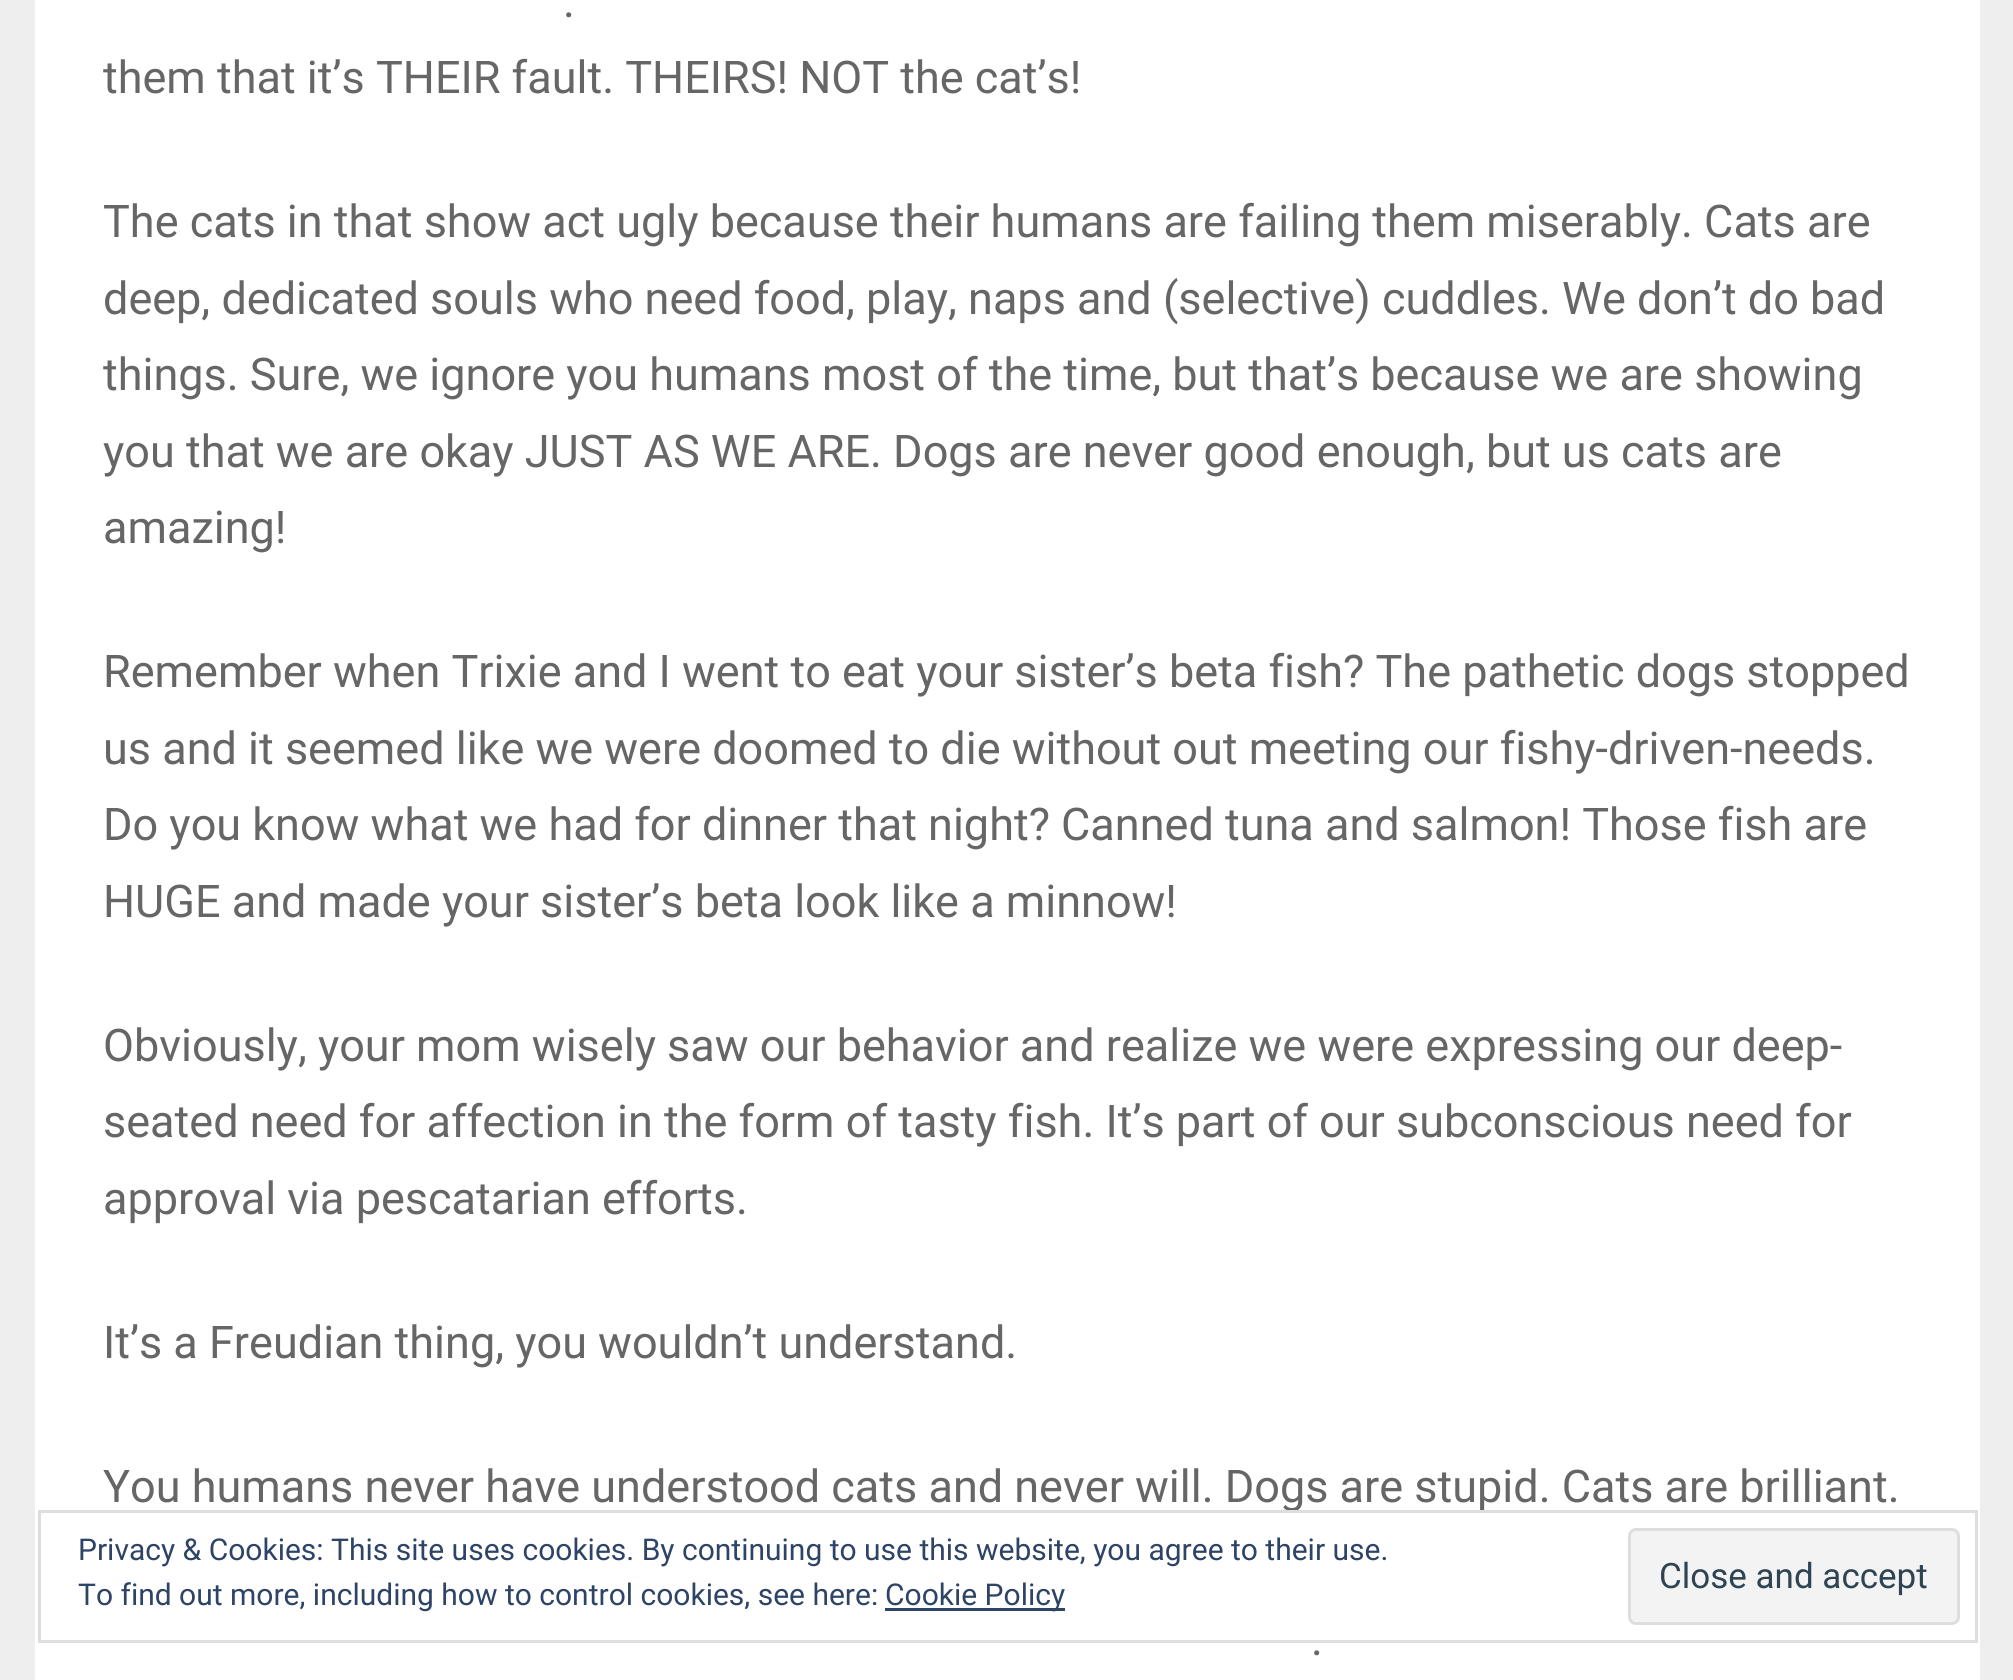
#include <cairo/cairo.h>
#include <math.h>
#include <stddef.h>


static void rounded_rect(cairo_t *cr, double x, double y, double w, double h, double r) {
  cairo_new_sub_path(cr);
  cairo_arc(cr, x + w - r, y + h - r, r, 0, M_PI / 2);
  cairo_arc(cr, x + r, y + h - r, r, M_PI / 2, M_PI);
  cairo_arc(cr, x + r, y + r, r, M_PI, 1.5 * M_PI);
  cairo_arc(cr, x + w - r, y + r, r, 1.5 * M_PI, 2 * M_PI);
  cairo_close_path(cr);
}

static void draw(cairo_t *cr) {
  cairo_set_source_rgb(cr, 238 / 255.0, 238 / 255.0, 238 / 255.0);
  cairo_paint(cr);
  cairo_set_source_rgb(cr, 1, 1, 1);
  cairo_rectangle(cr, 35, 0, 1945, 1680);
  cairo_fill(cr);
  cairo_select_font_face(cr, "Roboto", CAIRO_FONT_SLANT_NORMAL, CAIRO_FONT_WEIGHT_NORMAL);
  cairo_set_font_size(cr, 45);
  cairo_set_source_rgb(cr, 102 / 255.0, 102 / 255.0, 102 / 255.0);
  cairo_move_to(cr, 563, 17);
  cairo_show_text(cr, ".");
  cairo_move_to(cr, 103, 93);
  cairo_show_text(cr, "them that it’s THEIR fault. THEIRS! NOT the cat’s!");
  cairo_move_to(cr, 103, 237);
  cairo_show_text(cr, "The cats in that show act ugly because their humans are failing them miserably. Cats are");
  cairo_move_to(cr, 103, 314);
  cairo_show_text(cr, "deep, dedicated souls who need food, play, naps and (selective) cuddles. We don’t do bad");
  cairo_move_to(cr, 103, 390);
  cairo_show_text(cr, "things. Sure, we ignore you humans most of the time, but that’s because we are showing");
  cairo_move_to(cr, 103, 467);
  cairo_show_text(cr, "you that we are okay JUST AS WE ARE. Dogs are never good enough, but us cats are");
  cairo_move_to(cr, 103, 543);
  cairo_show_text(cr, "amazing!");
  cairo_move_to(cr, 103, 687);
  cairo_show_text(cr, "Remember when Trixie and I went to eat your sister’s beta fish? The pathetic dogs stopped");
  cairo_move_to(cr, 103, 764);
  cairo_show_text(cr, "us and it seemed like we were doomed to die without out meeting our fishy-driven-needs.");
  cairo_move_to(cr, 103, 840);
  cairo_show_text(cr, "Do you know what we had for dinner that night? Canned tuna and salmon! Those fish are");
  cairo_move_to(cr, 103, 917);
  cairo_show_text(cr, "HUGE and made your sister’s beta look like a minnow!");
  cairo_move_to(cr, 103, 1061);
  cairo_show_text(cr, "Obviously, your mom wisely saw our behavior and realize we were expressing our deep-");
  cairo_move_to(cr, 103, 1137);
  cairo_show_text(cr, "seated need for affection in the form of tasty fish. It’s part of our subconscious need for");
  cairo_move_to(cr, 103, 1214);
  cairo_show_text(cr, "approval via pescatarian efforts.");
  cairo_move_to(cr, 103, 1358);
  cairo_show_text(cr, "It’s a Freudian thing, you wouldn’t understand.");
  cairo_move_to(cr, 103, 1502);
  cairo_show_text(cr, "You humans never have understood cats and never will. Dogs are stupid. Cats are brilliant.");
  cairo_move_to(cr, 1311, 1655);
  cairo_show_text(cr, ".");
  cairo_rectangle(cr, 39.5, 1511.5, 1937, 130);
  cairo_set_source_rgb(cr, 222 / 255.0, 222 / 255.0, 222 / 255.0);
  cairo_set_line_width(cr, 3);
  cairo_stroke(cr);
  cairo_set_font_size(cr, 30);
  cairo_set_source_rgb(cr, 46 / 255.0, 68 / 255.0, 103 / 255.0);
  cairo_move_to(cr, 78, 1560);
  cairo_show_text(cr, "Privacy & Cookies: This site uses cookies. By continuing to use this website, you agree to their use.");
  cairo_move_to(cr, 78, 1605);
  cairo_show_text(cr, "To find out more, including how to control cookies, see here:");
  cairo_rectangle(cr, 885, 1608, 180, 3);
  cairo_fill(cr);
  cairo_move_to(cr, 885, 1605);
  cairo_show_text(cr, "Cookie Policy");
  cairo_set_source_rgb(cr, 243 / 255.0, 243 / 255.0, 243 / 255.0);
  rounded_rect(cr, 1629.5, 1529.5, 329, 94, 6.5);
  cairo_fill_preserve(cr);
  cairo_set_source_rgb(cr, 222 / 255.0, 222 / 255.0, 222 / 255.0);
  cairo_stroke(cr);
  cairo_set_font_size(cr, 35);
  cairo_set_source_rgb(cr, 46 / 255.0, 68 / 255.0, 83 / 255.0);
  cairo_move_to(cr, 1659, 1588);
  cairo_show_text(cr, "Close and accept");
}

int main(void) {
  cairo_surface_t *surface = cairo_image_surface_create(CAIRO_FORMAT_RGB24, 2013, 1680);
  cairo_t *cr = cairo_create(surface);
  cairo_font_options_t *options = cairo_font_options_create();
  cairo_font_options_set_hint_metrics(options, CAIRO_HINT_METRICS_OFF);
  cairo_font_options_set_hint_style(options, CAIRO_HINT_STYLE_NONE);
  cairo_set_font_options(cr, options);
  cairo_set_miter_limit(cr, 4);
  draw(cr);
  cairo_surface_write_to_png(surface, "out.png");
  cairo_font_options_destroy(options);
  cairo_destroy(cr);
  cairo_surface_destroy(surface);
  return 0;
}
